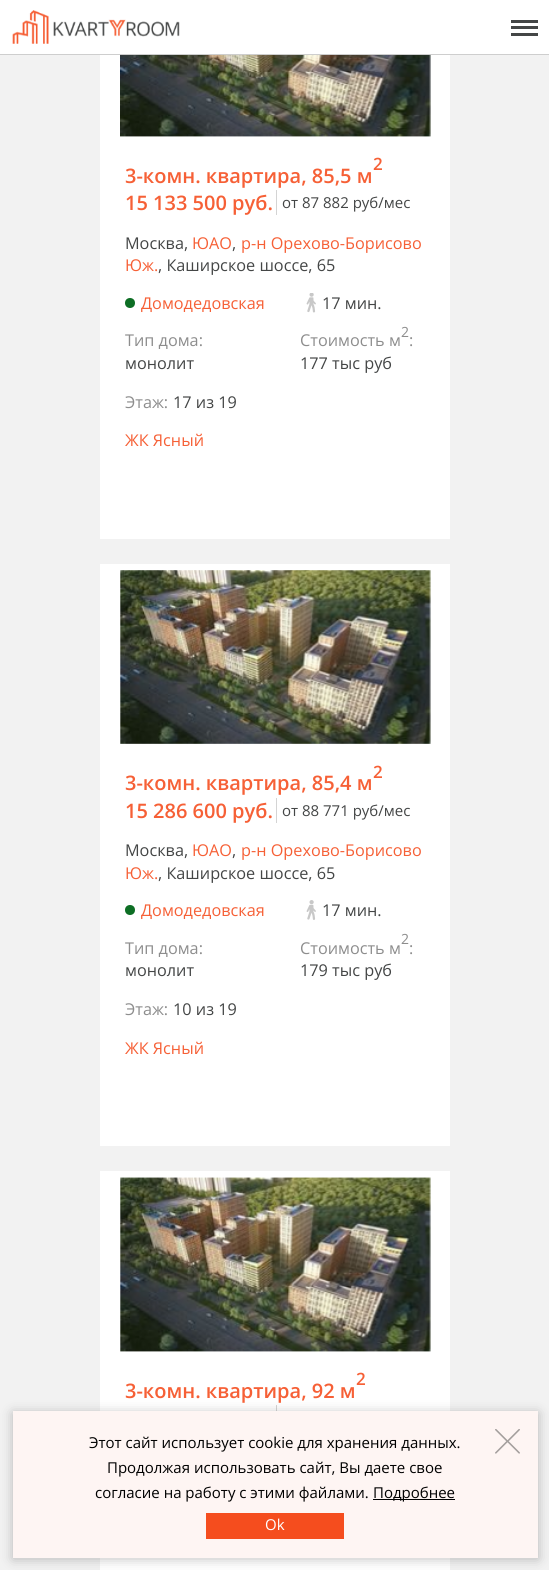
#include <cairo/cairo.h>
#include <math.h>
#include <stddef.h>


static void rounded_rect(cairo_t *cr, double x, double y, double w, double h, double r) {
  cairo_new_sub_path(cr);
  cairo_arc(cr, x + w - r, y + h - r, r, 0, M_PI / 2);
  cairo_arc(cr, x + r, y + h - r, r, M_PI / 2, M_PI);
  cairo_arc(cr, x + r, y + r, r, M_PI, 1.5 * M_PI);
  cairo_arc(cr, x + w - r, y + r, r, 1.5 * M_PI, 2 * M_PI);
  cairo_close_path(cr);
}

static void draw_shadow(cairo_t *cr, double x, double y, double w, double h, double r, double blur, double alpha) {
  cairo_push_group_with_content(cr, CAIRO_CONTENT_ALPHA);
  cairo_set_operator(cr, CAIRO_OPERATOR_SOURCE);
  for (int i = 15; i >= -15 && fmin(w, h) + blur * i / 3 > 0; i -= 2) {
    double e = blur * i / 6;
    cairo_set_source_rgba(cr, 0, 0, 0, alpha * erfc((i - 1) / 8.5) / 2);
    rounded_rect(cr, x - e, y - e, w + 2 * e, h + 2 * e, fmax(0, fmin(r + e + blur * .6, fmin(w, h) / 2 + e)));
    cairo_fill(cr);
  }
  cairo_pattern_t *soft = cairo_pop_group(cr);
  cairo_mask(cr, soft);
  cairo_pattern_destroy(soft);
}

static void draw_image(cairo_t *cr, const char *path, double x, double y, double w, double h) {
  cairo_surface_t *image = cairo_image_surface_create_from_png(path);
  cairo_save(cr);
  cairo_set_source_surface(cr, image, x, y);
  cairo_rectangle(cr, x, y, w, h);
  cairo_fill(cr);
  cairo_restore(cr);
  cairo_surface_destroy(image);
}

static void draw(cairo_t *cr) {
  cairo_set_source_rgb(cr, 242 / 255.0, 242 / 255.0, 242 / 255.0);
  cairo_paint(cr);
  cairo_set_source_rgb(cr, 206 / 255.0, 206 / 255.0, 206 / 255.0);
  cairo_rectangle(cr, 0, 54, 549, 1);
  cairo_fill(cr);
  cairo_set_source_rgb(cr, 1, 1, 1);
  cairo_rectangle(cr, 0, 0, 549, 54);
  cairo_fill(cr);
  draw_image(cr, "images/1.png", 12, 10, 168, 34);
  cairo_set_source_rgb(cr, 68 / 255.0, 70 / 255.0, 70 / 255.0);
  cairo_rectangle(cr, 511, 20, 27, 3);
  cairo_fill(cr);
  cairo_rectangle(cr, 511, 26, 27, 3);
  cairo_fill(cr);
  cairo_rectangle(cr, 511, 33, 27, 3);
  cairo_fill(cr);
  cairo_set_source_rgb(cr, 1, 1, 1);
  cairo_rectangle(cr, 100, 55, 350, 484);
  cairo_fill(cr);
  draw_image(cr, "images/2.png", 120, 55, 311, 82);
  cairo_set_source_rgb(cr, 212 / 255.0, 212 / 255.0, 212 / 255.0);
  cairo_rectangle(cr, 276, 190, 1, 25);
  cairo_fill(cr);
  cairo_set_source_rgb(cr, 13 / 255.0, 110 / 255.0, 36 / 255.0);
  cairo_arc(cr, 130, 303, 5, 0, 2 * M_PI);
  cairo_fill(cr);
  draw_image(cr, "images/3.png", 306, 293, 10, 20);
  cairo_set_source_rgb(cr, 1, 1, 1);
  cairo_rectangle(cr, 100, 564, 350, 582);
  cairo_fill(cr);
  draw_image(cr, "images/4.png", 120, 570, 311, 174);
  cairo_set_source_rgb(cr, 212 / 255.0, 212 / 255.0, 212 / 255.0);
  cairo_rectangle(cr, 276, 798, 1, 25);
  cairo_fill(cr);
  cairo_set_source_rgb(cr, 13 / 255.0, 110 / 255.0, 36 / 255.0);
  cairo_arc(cr, 130, 910, 5, 0, 2 * M_PI);
  cairo_fill(cr);
  draw_image(cr, "images/5.png", 306, 900, 10, 20);
  cairo_set_source_rgb(cr, 1, 1, 1);
  cairo_rectangle(cr, 100, 1171, 350, 399);
  cairo_fill(cr);
  draw_image(cr, "images/6.png", 120, 1177, 311, 175);
  cairo_set_source_rgb(cr, 212 / 255.0, 212 / 255.0, 212 / 255.0);
  cairo_rectangle(cr, 276, 1405, 1, 6);
  cairo_fill(cr);
  cairo_set_source_rgb(cr, 0, 0, 0);
  draw_shadow(cr, 13, 1413, 525, 146, 0, 6, 0.25);
  cairo_set_source_rgb(cr, 254 / 255.0, 245 / 255.0, 243 / 255.0);
  cairo_rectangle(cr, 13, 1411, 525, 147);
  cairo_fill(cr);
  cairo_set_source_rgb(cr, 0, 0, 0);
  cairo_rectangle(cr, 373, 1499, 82, 1);
  cairo_fill(cr);
  draw_image(cr, "images/7.png", 495, 1429, 25, 25);
  cairo_set_source_rgb(cr, 245 / 255.0, 77 / 255.0, 30 / 255.0);
  cairo_rectangle(cr, 206, 1513, 138, 26);
  cairo_fill(cr);
  cairo_select_font_face(cr, "Open Sans SemiBold", CAIRO_FONT_SLANT_NORMAL, CAIRO_FONT_WEIGHT_NORMAL);
  cairo_set_font_size(cr, 17);
  cairo_set_source_rgb(cr, 246 / 255.0, 96 / 255.0, 54 / 255.0);
  cairo_move_to(cr, 373, 170);
  cairo_show_text(cr, "2");
  cairo_set_font_size(cr, 20);
  cairo_move_to(cr, 125, 183);
  cairo_show_text(cr, "3-комн. квартира, 85,5 м");
  cairo_move_to(cr, 125, 210);
  cairo_show_text(cr, "15 133 500 руб.");
  cairo_select_font_face(cr, "Open Sans", CAIRO_FONT_SLANT_NORMAL, CAIRO_FONT_WEIGHT_NORMAL);
  cairo_set_font_size(cr, 15);
  cairo_set_source_rgb(cr, 68 / 255.0, 70 / 255.0, 70 / 255.0);
  cairo_move_to(cr, 282, 208);
  cairo_show_text(cr, "от 87 882 руб/мес");
  cairo_set_font_size(cr, 16.25);
  cairo_move_to(cr, 125, 249);
  cairo_show_text(cr, "Москва,");
  cairo_set_source_rgb(cr, 246 / 255.0, 96 / 255.0, 54 / 255.0);
  cairo_move_to(cr, 192, 249);
  cairo_show_text(cr, "ЮАО");
  cairo_set_source_rgb(cr, 68 / 255.0, 70 / 255.0, 70 / 255.0);
  cairo_move_to(cr, 232, 249);
  cairo_show_text(cr, ",");
  cairo_set_source_rgb(cr, 246 / 255.0, 96 / 255.0, 54 / 255.0);
  cairo_move_to(cr, 241, 249);
  cairo_show_text(cr, "р-н Орехово-Борисово");
  cairo_move_to(cr, 125, 271);
  cairo_show_text(cr, "Юж.");
  cairo_set_source_rgb(cr, 68 / 255.0, 70 / 255.0, 70 / 255.0);
  cairo_move_to(cr, 158, 271);
  cairo_show_text(cr, ", Каширское шоссе, 65");
  cairo_set_source_rgb(cr, 246 / 255.0, 96 / 255.0, 54 / 255.0);
  cairo_move_to(cr, 141, 309);
  cairo_show_text(cr, "Домодедовская");
  cairo_set_source_rgb(cr, 68 / 255.0, 70 / 255.0, 70 / 255.0);
  cairo_move_to(cr, 322, 309);
  cairo_show_text(cr, "17 мин.");
  cairo_set_source_rgb(cr, 141 / 255.0, 141 / 255.0, 141 / 255.0);
  cairo_move_to(cr, 125, 346);
  cairo_show_text(cr, "Тип дома:");
  cairo_set_source_rgb(cr, 68 / 255.0, 70 / 255.0, 70 / 255.0);
  cairo_move_to(cr, 125, 369);
  cairo_show_text(cr, "монолит");
  cairo_set_font_size(cr, 14);
  cairo_set_source_rgb(cr, 141 / 255.0, 141 / 255.0, 141 / 255.0);
  cairo_move_to(cr, 401, 337);
  cairo_show_text(cr, "2");
  cairo_set_font_size(cr, 16.25);
  cairo_move_to(cr, 300, 346);
  cairo_show_text(cr, "Стоимость м");
  cairo_move_to(cr, 409, 346);
  cairo_show_text(cr, ":");
  cairo_set_source_rgb(cr, 68 / 255.0, 70 / 255.0, 70 / 255.0);
  cairo_move_to(cr, 300, 369);
  cairo_show_text(cr, "177 тыс руб");
  cairo_set_source_rgb(cr, 141 / 255.0, 141 / 255.0, 141 / 255.0);
  cairo_move_to(cr, 125, 408);
  cairo_show_text(cr, "Этаж:");
  cairo_set_source_rgb(cr, 68 / 255.0, 70 / 255.0, 70 / 255.0);
  cairo_move_to(cr, 173, 408);
  cairo_show_text(cr, "17 из 19");
  cairo_set_source_rgb(cr, 246 / 255.0, 96 / 255.0, 54 / 255.0);
  cairo_move_to(cr, 125, 446);
  cairo_show_text(cr, "ЖК Ясный");
  cairo_select_font_face(cr, "Open Sans SemiBold", CAIRO_FONT_SLANT_NORMAL, CAIRO_FONT_WEIGHT_NORMAL);
  cairo_set_font_size(cr, 17);
  cairo_move_to(cr, 373, 778);
  cairo_show_text(cr, "2");
  cairo_set_font_size(cr, 20);
  cairo_move_to(cr, 125, 790);
  cairo_show_text(cr, "3-комн. квартира, 85,4 м");
  cairo_move_to(cr, 125, 818);
  cairo_show_text(cr, "15 286 600 руб.");
  cairo_select_font_face(cr, "Open Sans", CAIRO_FONT_SLANT_NORMAL, CAIRO_FONT_WEIGHT_NORMAL);
  cairo_set_font_size(cr, 15);
  cairo_set_source_rgb(cr, 68 / 255.0, 70 / 255.0, 70 / 255.0);
  cairo_move_to(cr, 282, 816);
  cairo_show_text(cr, "от 88 771 руб/мес");
  cairo_set_font_size(cr, 16.25);
  cairo_move_to(cr, 125, 856);
  cairo_show_text(cr, "Москва,");
  cairo_set_source_rgb(cr, 246 / 255.0, 96 / 255.0, 54 / 255.0);
  cairo_move_to(cr, 192, 856);
  cairo_show_text(cr, "ЮАО");
  cairo_set_source_rgb(cr, 68 / 255.0, 70 / 255.0, 70 / 255.0);
  cairo_move_to(cr, 232, 856);
  cairo_show_text(cr, ",");
  cairo_set_source_rgb(cr, 246 / 255.0, 96 / 255.0, 54 / 255.0);
  cairo_move_to(cr, 241, 856);
  cairo_show_text(cr, "р-н Орехово-Борисово");
  cairo_move_to(cr, 125, 879);
  cairo_show_text(cr, "Юж.");
  cairo_set_source_rgb(cr, 68 / 255.0, 70 / 255.0, 70 / 255.0);
  cairo_move_to(cr, 158, 879);
  cairo_show_text(cr, ", Каширское шоссе, 65");
  cairo_set_source_rgb(cr, 246 / 255.0, 96 / 255.0, 54 / 255.0);
  cairo_move_to(cr, 141, 916);
  cairo_show_text(cr, "Домодедовская");
  cairo_set_source_rgb(cr, 68 / 255.0, 70 / 255.0, 70 / 255.0);
  cairo_move_to(cr, 322, 916);
  cairo_show_text(cr, "17 мин.");
  cairo_set_source_rgb(cr, 141 / 255.0, 141 / 255.0, 141 / 255.0);
  cairo_move_to(cr, 125, 954);
  cairo_show_text(cr, "Тип дома:");
  cairo_set_source_rgb(cr, 68 / 255.0, 70 / 255.0, 70 / 255.0);
  cairo_move_to(cr, 125, 976);
  cairo_show_text(cr, "монолит");
  cairo_set_font_size(cr, 14);
  cairo_set_source_rgb(cr, 141 / 255.0, 141 / 255.0, 141 / 255.0);
  cairo_move_to(cr, 401, 944);
  cairo_show_text(cr, "2");
  cairo_set_font_size(cr, 16.25);
  cairo_move_to(cr, 300, 954);
  cairo_show_text(cr, "Стоимость м");
  cairo_move_to(cr, 409, 954);
  cairo_show_text(cr, ":");
  cairo_set_source_rgb(cr, 68 / 255.0, 70 / 255.0, 70 / 255.0);
  cairo_move_to(cr, 300, 976);
  cairo_show_text(cr, "179 тыс руб");
  cairo_set_source_rgb(cr, 141 / 255.0, 141 / 255.0, 141 / 255.0);
  cairo_move_to(cr, 125, 1015);
  cairo_show_text(cr, "Этаж:");
  cairo_set_source_rgb(cr, 68 / 255.0, 70 / 255.0, 70 / 255.0);
  cairo_move_to(cr, 173, 1015);
  cairo_show_text(cr, "10 из 19");
  cairo_set_source_rgb(cr, 246 / 255.0, 96 / 255.0, 54 / 255.0);
  cairo_move_to(cr, 125, 1054);
  cairo_show_text(cr, "ЖК Ясный");
  cairo_select_font_face(cr, "Open Sans SemiBold", CAIRO_FONT_SLANT_NORMAL, CAIRO_FONT_WEIGHT_NORMAL);
  cairo_set_font_size(cr, 17);
  cairo_move_to(cr, 356, 1385);
  cairo_show_text(cr, "2");
  cairo_set_font_size(cr, 20);
  cairo_move_to(cr, 125, 1398);
  cairo_show_text(cr, "3-комн. квартира, 92 м");
  cairo_select_font_face(cr, "Open Sans", CAIRO_FONT_SLANT_NORMAL, CAIRO_FONT_WEIGHT_NORMAL);
  cairo_set_font_size(cr, 15);
  cairo_set_source_rgb(cr, 0, 0, 0);
  cairo_move_to(cr, 89, 1448);
  cairo_show_text(cr, "Этот сайт использует cookie для хранения данных.");
  cairo_move_to(cr, 107, 1473);
  cairo_show_text(cr, "Продолжая использовать сайт, Вы даете свое");
  cairo_move_to(cr, 95, 1498);
  cairo_show_text(cr, "согласие на работу с этими файлами.");
  cairo_move_to(cr, 373, 1498);
  cairo_show_text(cr, "Подробнее");
  cairo_set_source_rgb(cr, 1, 1, 1);
  cairo_move_to(cr, 265, 1530);
  cairo_show_text(cr, "Оk");
}

int main(void) {
  cairo_surface_t *surface = cairo_image_surface_create(CAIRO_FORMAT_RGB24, 549, 1570);
  cairo_t *cr = cairo_create(surface);
  cairo_font_options_t *options = cairo_font_options_create();
  cairo_font_options_set_hint_metrics(options, CAIRO_HINT_METRICS_OFF);
  cairo_font_options_set_hint_style(options, CAIRO_HINT_STYLE_NONE);
  cairo_set_font_options(cr, options);
  cairo_set_miter_limit(cr, 4);
  draw(cr);
  cairo_surface_write_to_png(surface, "out.png");
  cairo_font_options_destroy(options);
  cairo_destroy(cr);
  cairo_surface_destroy(surface);
  return 0;
}
